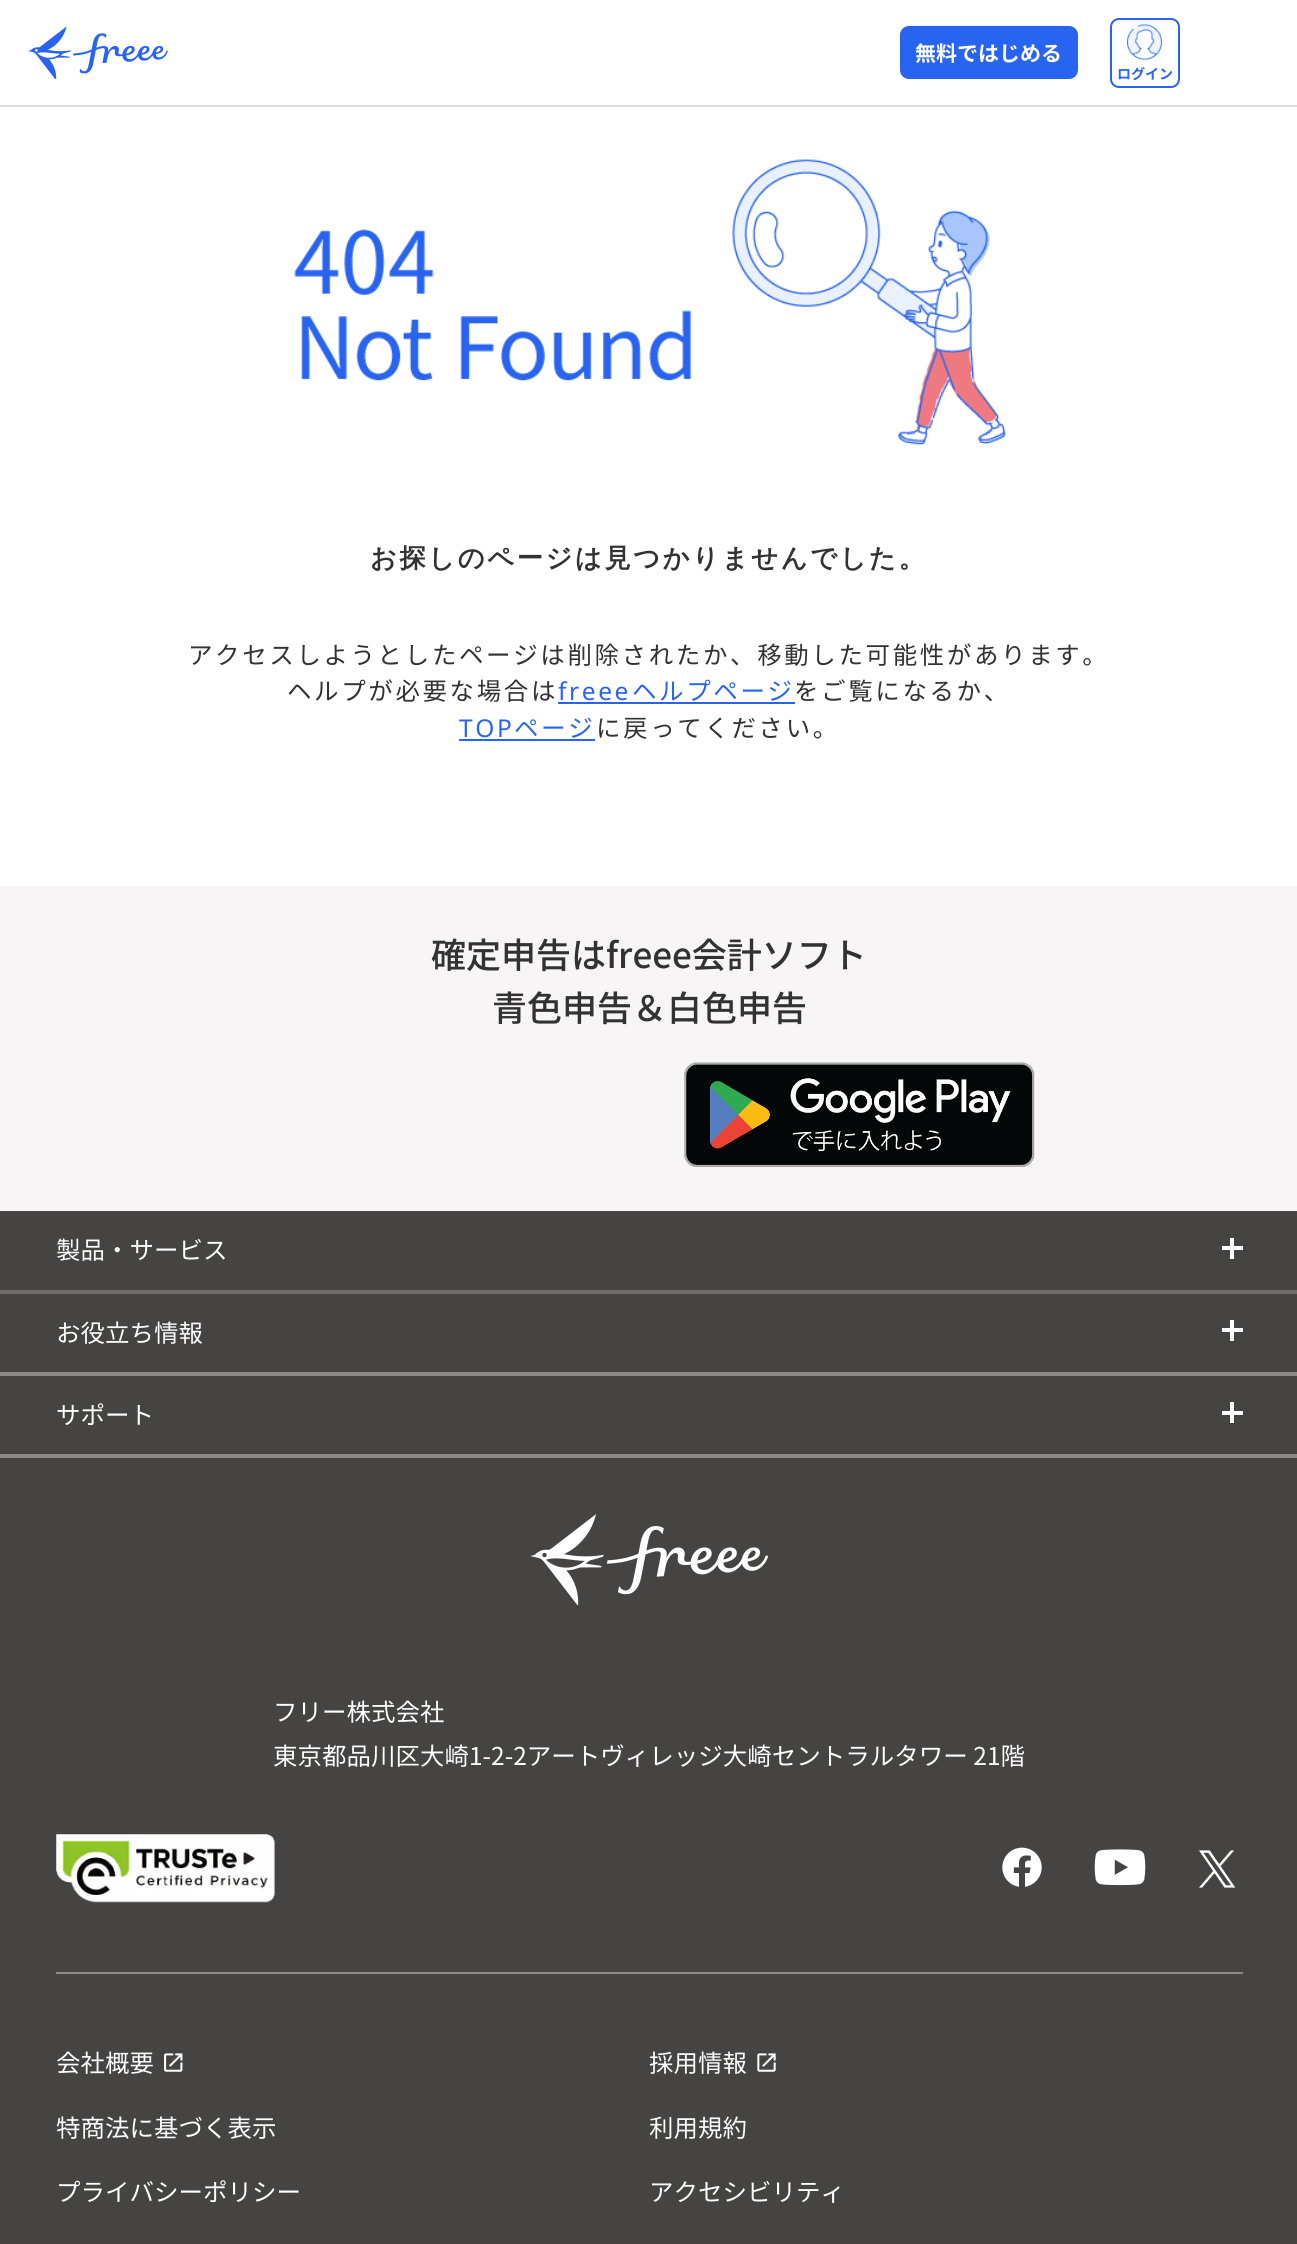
#include <cairo/cairo.h>
#include <math.h>
#include <stddef.h>


static void draw_spaced(cairo_t *cr, double x, double y, const char *s, double letter, double word) {
  cairo_move_to(cr, x, y);
  while (*s) {
    char ch[5] = {0};
    int n = 0;
    do ch[n++] = *s++; while ((*s & 0xC0) == 0x80);
    cairo_show_text(cr, ch);
    cairo_rel_move_to(cr, letter + word * (*ch == ' '), 0);
  }
}

static void rounded_rect(cairo_t *cr, double x, double y, double w, double h, double r) {
  cairo_new_sub_path(cr);
  cairo_arc(cr, x + w - r, y + h - r, r, 0, M_PI / 2);
  cairo_arc(cr, x + r, y + h - r, r, M_PI / 2, M_PI);
  cairo_arc(cr, x + r, y + r, r, M_PI, 1.5 * M_PI);
  cairo_arc(cr, x + w - r, y + r, r, 1.5 * M_PI, 2 * M_PI);
  cairo_close_path(cr);
}

static void draw_image(cairo_t *cr, const char *path, double x, double y, double w, double h) {
  cairo_surface_t *image = cairo_image_surface_create_from_png(path);
  cairo_save(cr);
  cairo_set_source_surface(cr, image, x, y);
  cairo_rectangle(cr, x, y, w, h);
  cairo_fill(cr);
  cairo_restore(cr);
  cairo_surface_destroy(image);
}

static void draw(cairo_t *cr) {
  cairo_set_source_rgb(cr, 1, 1, 1);
  cairo_paint(cr);
  draw_image(cr, "images/1.png", 28, 26, 140, 53);
  cairo_set_source_rgb(cr, 40 / 255.0, 100 / 255.0, 240 / 255.0);
  rounded_rect(cr, 901, 27, 176, 51, 8);
  cairo_fill_preserve(cr);
  cairo_stroke(cr);
  rounded_rect(cr, 1111, 19, 68, 68, 8);
  cairo_stroke(cr);
  draw_image(cr, "images/2.png", 1127, 24, 35, 36);
  cairo_set_source_rgb(cr, 225 / 255.0, 220 / 255.0, 220 / 255.0);
  cairo_rectangle(cr, 0, 105, 1297, 2);
  cairo_fill(cr);
  draw_image(cr, "images/3.png", 294, 159, 712, 286);
  cairo_set_source_rgb(cr, 40 / 255.0, 100 / 255.0, 240 / 255.0);
  cairo_rectangle(cr, 558, 702, 237, 2);
  cairo_fill(cr);
  cairo_rectangle(cr, 459, 739, 136, 2);
  cairo_fill(cr);
  cairo_set_source_rgb(cr, 247 / 255.0, 245 / 255.0, 245 / 255.0);
  cairo_rectangle(cr, 0, 886, 1297, 325);
  cairo_fill(cr);
  draw_image(cr, "images/4.png", 684, 1062, 351, 105);
  cairo_set_source_rgb(cr, 70 / 255.0, 67 / 255.0, 67 / 255.0);
  cairo_rectangle(cr, 0, 1211, 1297, 1033);
  cairo_fill(cr);
  cairo_set_source_rgb(cr, 110 / 255.0, 107 / 255.0, 107 / 255.0);
  cairo_rectangle(cr, 0, 1290, 1297, 4);
  cairo_fill(cr);
  cairo_set_source_rgb(cr, 1, 1, 1);
  cairo_rectangle(cr, 1222, 1246, 21, 4);
  cairo_fill(cr);
  cairo_rectangle(cr, 1230, 1238, 4, 21);
  cairo_fill(cr);
  cairo_set_source_rgb(cr, 140 / 255.0, 137 / 255.0, 137 / 255.0);
  cairo_rectangle(cr, 0, 1372, 1297, 4);
  cairo_fill(cr);
  cairo_set_source_rgb(cr, 1, 1, 1);
  cairo_rectangle(cr, 1222, 1328, 21, 4);
  cairo_fill(cr);
  cairo_rectangle(cr, 1230, 1320, 4, 21);
  cairo_fill(cr);
  cairo_set_source_rgb(cr, 140 / 255.0, 137 / 255.0, 137 / 255.0);
  cairo_rectangle(cr, 0, 1454, 1297, 4);
  cairo_fill(cr);
  cairo_set_source_rgb(cr, 1, 1, 1);
  cairo_rectangle(cr, 1222, 1411, 21, 4);
  cairo_fill(cr);
  cairo_rectangle(cr, 1230, 1402, 4, 21);
  cairo_fill(cr);
  draw_image(cr, "images/5.png", 530, 1514, 238, 91);
  draw_image(cr, "images/6.png", 56, 1834, 219, 69);
  draw_image(cr, "images/7.png", 1002, 1847, 40, 40);
  draw_image(cr, "images/8.png", 1094, 1849, 52, 37);
  draw_image(cr, "images/9.png", 1199, 1850, 37, 38);
  cairo_set_source_rgb(cr, 140 / 255.0, 137 / 255.0, 137 / 255.0);
  cairo_rectangle(cr, 56, 1972, 1187, 2);
  cairo_fill(cr);
  draw_image(cr, "images/10.png", 164, 2053, 19, 19);
  draw_image(cr, "images/11.png", 757, 2053, 19, 19);
  cairo_select_font_face(cr, "Noto Sans CJK JP", CAIRO_FONT_SLANT_NORMAL, CAIRO_FONT_WEIGHT_BOLD);
  cairo_set_font_size(cr, 21);
  cairo_set_source_rgb(cr, 1, 1, 1);
  cairo_move_to(cr, 915, 61);
  cairo_show_text(cr, "無料ではじめる");
  cairo_set_font_size(cr, 14);
  cairo_set_source_rgb(cr, 40 / 255.0, 100 / 255.0, 240 / 255.0);
  cairo_move_to(cr, 1117, 79);
  cairo_show_text(cr, "ログイン");
  cairo_select_font_face(cr, "WenQuanYi Zen Hei", CAIRO_FONT_SLANT_NORMAL, CAIRO_FONT_WEIGHT_BOLD);
  cairo_set_font_size(cr, 26.25);
  cairo_set_source_rgb(cr, 50 / 255.0, 50 / 255.0, 50 / 255.0);
  draw_spaced(cr, 370, 567, "お探しのページは見つかりませんでした。", 2.6, 0);
  cairo_select_font_face(cr, "Noto Sans CJK JP", CAIRO_FONT_SLANT_NORMAL, CAIRO_FONT_WEIGHT_NORMAL);
  cairo_set_font_size(cr, 24.5);
  draw_spaced(cr, 188, 664, "アクセスしようとしたページは削除されたか、移動した可能性があります。", 2.6, 0);
  draw_spaced(cr, 287, 700, "ヘルプが必要な場合は", 2.6, 0);
  cairo_select_font_face(cr, "Noto Sans", CAIRO_FONT_SLANT_NORMAL, CAIRO_FONT_WEIGHT_NORMAL);
  cairo_set_source_rgb(cr, 40 / 255.0, 100 / 255.0, 240 / 255.0);
  draw_spaced(cr, 558, 700, "freee", 2.6, 0);
  cairo_select_font_face(cr, "Noto Sans CJK JP", CAIRO_FONT_SLANT_NORMAL, CAIRO_FONT_WEIGHT_NORMAL);
  draw_spaced(cr, 632, 700, "ヘルプページ", 2.6, 0);
  cairo_set_source_rgb(cr, 50 / 255.0, 50 / 255.0, 50 / 255.0);
  draw_spaced(cr, 794, 700, "をご覧になるか、", 2.6, 0);
  cairo_select_font_face(cr, "Noto Sans", CAIRO_FONT_SLANT_NORMAL, CAIRO_FONT_WEIGHT_NORMAL);
  cairo_set_source_rgb(cr, 40 / 255.0, 100 / 255.0, 240 / 255.0);
  draw_spaced(cr, 459, 737, "TOP", 2.6, 0);
  cairo_select_font_face(cr, "Noto Sans CJK JP", CAIRO_FONT_SLANT_NORMAL, CAIRO_FONT_WEIGHT_NORMAL);
  draw_spaced(cr, 514, 737, "ページ", 2.6, 0);
  cairo_set_source_rgb(cr, 50 / 255.0, 50 / 255.0, 50 / 255.0);
  draw_spaced(cr, 596, 737, "に戻ってください。", 2.6, 0);
  cairo_select_font_face(cr, "Noto Sans CJK JP Medium", CAIRO_FONT_SLANT_NORMAL, CAIRO_FONT_WEIGHT_NORMAL);
  cairo_set_font_size(cr, 35);
  cairo_move_to(cr, 431, 968);
  cairo_show_text(cr, "確定申告はfreee会計ソフト");
  cairo_move_to(cr, 492, 1021);
  cairo_show_text(cr, "青色申告＆白色申告");
  cairo_select_font_face(cr, "Noto Sans CJK JP", CAIRO_FONT_SLANT_NORMAL, CAIRO_FONT_WEIGHT_NORMAL);
  cairo_set_font_size(cr, 24.5);
  cairo_set_source_rgb(cr, 1, 1, 1);
  cairo_move_to(cr, 56, 1259);
  cairo_show_text(cr, "製品・サービス");
  cairo_move_to(cr, 56, 1342);
  cairo_show_text(cr, "お役立ち情報");
  cairo_move_to(cr, 56, 1424);
  cairo_show_text(cr, "サポート");
  cairo_move_to(cr, 273, 1721);
  cairo_show_text(cr, "フリー株式会社");
  cairo_move_to(cr, 273, 1765);
  cairo_show_text(cr, "東京都品川区大崎1-2-2アートヴィレッジ大崎セントラルタワー 21階");
  cairo_move_to(cr, 56, 2072);
  cairo_show_text(cr, "会社概要");
  cairo_move_to(cr, 649, 2072);
  cairo_show_text(cr, "採用情報");
  cairo_move_to(cr, 56, 2137);
  cairo_show_text(cr, "特商法に基づく表示");
  cairo_move_to(cr, 649, 2137);
  cairo_show_text(cr, "利用規約");
  cairo_move_to(cr, 56, 2201);
  cairo_show_text(cr, "プライバシーポリシー");
  cairo_move_to(cr, 649, 2201);
  cairo_show_text(cr, "アクセシビリティ");
}

int main(void) {
  cairo_surface_t *surface = cairo_image_surface_create(CAIRO_FORMAT_RGB24, 1297, 2244);
  cairo_t *cr = cairo_create(surface);
  cairo_font_options_t *options = cairo_font_options_create();
  cairo_font_options_set_hint_metrics(options, CAIRO_HINT_METRICS_OFF);
  cairo_font_options_set_hint_style(options, CAIRO_HINT_STYLE_NONE);
  cairo_set_font_options(cr, options);
  cairo_set_miter_limit(cr, 4);
  draw(cr);
  cairo_surface_write_to_png(surface, "out.png");
  cairo_font_options_destroy(options);
  cairo_destroy(cr);
  cairo_surface_destroy(surface);
  return 0;
}
